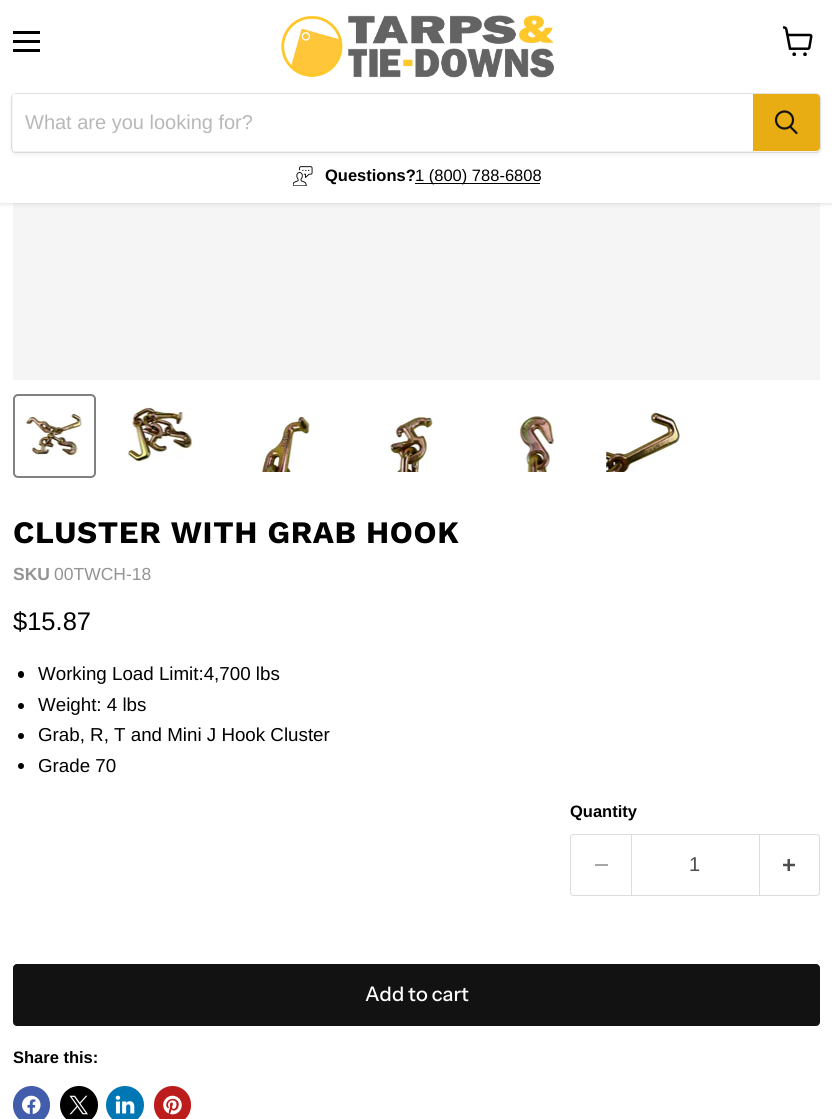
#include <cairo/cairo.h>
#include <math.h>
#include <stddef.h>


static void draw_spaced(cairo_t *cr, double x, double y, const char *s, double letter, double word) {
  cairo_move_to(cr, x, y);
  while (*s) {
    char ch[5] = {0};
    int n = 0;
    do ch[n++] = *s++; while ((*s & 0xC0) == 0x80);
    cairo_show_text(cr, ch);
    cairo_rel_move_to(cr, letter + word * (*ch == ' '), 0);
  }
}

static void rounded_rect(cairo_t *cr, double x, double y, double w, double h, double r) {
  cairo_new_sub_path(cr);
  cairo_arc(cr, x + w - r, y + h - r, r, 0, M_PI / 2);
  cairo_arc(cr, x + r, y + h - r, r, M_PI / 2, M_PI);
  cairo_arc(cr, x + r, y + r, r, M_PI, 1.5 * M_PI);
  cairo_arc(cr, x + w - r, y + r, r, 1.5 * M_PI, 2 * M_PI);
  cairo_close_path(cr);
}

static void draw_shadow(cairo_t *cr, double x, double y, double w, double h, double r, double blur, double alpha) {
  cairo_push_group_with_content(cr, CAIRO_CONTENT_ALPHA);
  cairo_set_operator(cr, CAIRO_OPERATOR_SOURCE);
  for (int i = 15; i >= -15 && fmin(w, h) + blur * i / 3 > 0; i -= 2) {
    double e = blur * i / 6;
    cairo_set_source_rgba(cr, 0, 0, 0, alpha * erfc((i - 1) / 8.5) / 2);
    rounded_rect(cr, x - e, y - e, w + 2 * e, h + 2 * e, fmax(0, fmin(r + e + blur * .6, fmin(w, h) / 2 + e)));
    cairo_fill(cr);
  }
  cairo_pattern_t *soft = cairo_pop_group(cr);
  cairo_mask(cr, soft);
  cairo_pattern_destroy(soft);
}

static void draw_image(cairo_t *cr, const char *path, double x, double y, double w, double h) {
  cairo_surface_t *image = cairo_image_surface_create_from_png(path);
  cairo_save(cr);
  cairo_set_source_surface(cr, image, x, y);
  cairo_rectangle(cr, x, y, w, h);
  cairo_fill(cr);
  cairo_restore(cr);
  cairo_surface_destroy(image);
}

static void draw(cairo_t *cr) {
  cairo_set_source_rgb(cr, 1, 1, 1);
  cairo_paint(cr);
  cairo_set_source_rgb(cr, 245 / 255.0, 245 / 255.0, 245 / 255.0);
  cairo_rectangle(cr, 13, 203, 807, 177);
  cairo_fill(cr);
  cairo_set_source_rgb(cr, 128 / 255.0, 128 / 255.0, 128 / 255.0);
  draw_shadow(cr, 0, 1, 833, 203, 0, 2.5, 0.25);
  cairo_set_source_rgb(cr, 1, 1, 1);
  cairo_rectangle(cr, 0, 0, 832, 203);
  cairo_fill(cr);
  cairo_set_source_rgb(cr, 0, 0, 0);
  cairo_rectangle(cr, 13, 31, 27, 3);
  cairo_fill(cr);
  cairo_rectangle(cr, 13, 40, 27, 3);
  cairo_fill(cr);
  cairo_rectangle(cr, 13, 49, 27, 3);
  cairo_fill(cr);
  draw_image(cr, "images/1.png", 783, 26, 30, 30);
  draw_image(cr, "images/2.png", 281, 15, 273, 63);
  cairo_set_source_rgb(cr, 128 / 255.0, 128 / 255.0, 128 / 255.0);
  draw_shadow(cr, 11, 95, 810, 60, 5, 2, 0.11);
  rounded_rect(cr, 11.5, 93.5, 809, 59, 4.5);
  cairo_set_source_rgba(cr, 128 / 255.0, 128 / 255.0, 128 / 255.0, 0.2);
  cairo_set_line_width(cr, 1);
  cairo_stroke(cr);
  cairo_set_source_rgb(cr, 1, 1, 1);
  cairo_rectangle(cr, 13, 94, 740, 57);
  cairo_fill(cr);
  cairo_set_source_rgb(cr, 233 / 255.0, 173 / 255.0, 20 / 255.0);
  cairo_new_path(cr);
  cairo_move_to(cr, 753.5, 94.5);
  cairo_line_to(cr, 816, 94.5);
  cairo_curve_to(cr, 818, 94.5, 819.5, 96, 819.5, 98);
  cairo_line_to(cr, 819.5, 147);
  cairo_curve_to(cr, 819.5, 149, 818, 150.5, 816, 150.5);
  cairo_line_to(cr, 753.5, 150.5);
  cairo_close_path(cr);
  cairo_fill_preserve(cr);
  cairo_stroke(cr);
  cairo_new_path(cr);
  cairo_move_to(cr, 796.5, 133);
  cairo_line_to(cr, 790.5, 127);
  cairo_set_source_rgb(cr, 18 / 255.0, 18 / 255.0, 18 / 255.0);
  cairo_set_line_width(cr, 2.2);
  cairo_set_line_cap(cr, CAIRO_LINE_CAP_ROUND);
  cairo_stroke(cr);
  cairo_arc(cr, 784.5, 120, 8.5, 0, 2 * M_PI);
  cairo_set_line_cap(cr, CAIRO_LINE_CAP_BUTT);
  cairo_stroke(cr);
  draw_image(cr, "images/3.png", 293, 166, 20, 20);
  cairo_set_source_rgb(cr, 0, 0, 0);
  cairo_rectangle(cr, 415, 183, 125, 1);
  cairo_fill(cr);
  rounded_rect(cr, 14, 395, 81, 82, 4);
  cairo_set_source_rgb(cr, 129 / 255.0, 129 / 255.0, 129 / 255.0);
  cairo_set_line_width(cr, 2);
  cairo_stroke(cr);
  draw_image(cr, "images/4.png", 25, 413, 58, 46);
  draw_image(cr, "images/5.png", 127, 406, 66, 56);
  draw_image(cr, "images/6.png", 261, 415, 49, 57);
  draw_image(cr, "images/7.png", 387, 416, 46, 56);
  draw_image(cr, "images/8.png", 519, 415, 35, 57);
  draw_image(cr, "images/9.png", 606, 412, 76, 60);
  cairo_set_source_rgb(cr, 0, 0, 0);
  rounded_rect(cr, 18, 671, 6, 7, 3);
  cairo_fill(cr);
  cairo_arc(cr, 21, 706, 3, 0, 2 * M_PI);
  cairo_fill(cr);
  cairo_arc(cr, 21, 736, 3, 0, 2 * M_PI);
  cairo_fill(cr);
  cairo_arc(cr, 21, 766, 3, 0, 2 * M_PI);
  cairo_fill(cr);
  cairo_set_source_rgb(cr, 221 / 255.0, 221 / 255.0, 221 / 255.0);
  cairo_set_fill_rule(cr, CAIRO_FILL_RULE_EVEN_ODD);
  cairo_new_path(cr);
  cairo_move_to(cr, 574, 834);
  cairo_line_to(cr, 631, 834);
  cairo_line_to(cr, 631, 896);
  cairo_line_to(cr, 574, 896);
  cairo_curve_to(cr, 572, 896, 570, 895, 570, 892);
  cairo_line_to(cr, 570, 838);
  cairo_curve_to(cr, 570, 835, 572, 834, 574, 834);
  cairo_close_path(cr);
  cairo_move_to(cr, 574, 835);
  cairo_line_to(cr, 631, 835);
  cairo_line_to(cr, 631, 895);
  cairo_line_to(cr, 574, 895);
  cairo_curve_to(cr, 572, 895, 571, 894, 571, 892);
  cairo_line_to(cr, 571, 838);
  cairo_curve_to(cr, 571, 836, 572, 835, 574, 835);
  cairo_close_path(cr);
  cairo_fill(cr);
  cairo_set_source_rgb(cr, 166 / 255.0, 166 / 255.0, 166 / 255.0);
  cairo_rectangle(cr, 595, 864, 13, 2);
  cairo_fill(cr);
  cairo_rectangle(cr, 631.5, 834.5, 128, 61);
  cairo_set_source_rgb(cr, 221 / 255.0, 221 / 255.0, 221 / 255.0);
  cairo_set_line_width(cr, 1);
  cairo_stroke(cr);
  cairo_new_path(cr);
  cairo_move_to(cr, 760, 834);
  cairo_line_to(cr, 816, 834);
  cairo_curve_to(cr, 818, 834, 820, 835, 820, 838);
  cairo_line_to(cr, 820, 892);
  cairo_curve_to(cr, 820, 895, 818, 896, 816, 896);
  cairo_line_to(cr, 760, 896);
  cairo_close_path(cr);
  cairo_move_to(cr, 760, 835);
  cairo_line_to(cr, 816, 835);
  cairo_curve_to(cr, 818, 835, 819, 836, 819, 838);
  cairo_line_to(cr, 819, 892);
  cairo_curve_to(cr, 819, 894, 818, 895, 816, 895);
  cairo_line_to(cr, 760, 895);
  cairo_close_path(cr);
  cairo_fill(cr);
  draw_image(cr, "images/10.png", 783, 859, 12, 12);
  cairo_set_source_rgb(cr, 18 / 255.0, 18 / 255.0, 18 / 255.0);
  rounded_rect(cr, 13.5, 964.5, 806, 61, 3.5);
  cairo_fill_preserve(cr);
  cairo_stroke(cr);
  cairo_set_source_rgb(cr, 66 / 255.0, 93 / 255.0, 171 / 255.0);
  rounded_rect(cr, 13, 1086, 37, 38, 18.5);
  cairo_fill(cr);
  draw_image(cr, "images/11.png", 22, 1095, 19, 20);
  cairo_set_source_rgb(cr, 0, 0, 0);
  cairo_arc(cr, 79, 1105, 19, 0, 2 * M_PI);
  cairo_fill(cr);
  draw_image(cr, "images/12.png", 69, 1095, 19, 20);
  cairo_set_source_rgb(cr, 0, 119 / 255.0, 181 / 255.0);
  cairo_arc(cr, 125, 1105, 19, 0, 2 * M_PI);
  cairo_fill(cr);
  draw_image(cr, "images/13.png", 115, 1095, 20, 19);
  cairo_set_source_rgb(cr, 189 / 255.0, 28 / 255.0, 28 / 255.0);
  rounded_rect(cr, 154, 1086, 37, 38, 18.5);
  cairo_fill(cr);
  draw_image(cr, "images/14.png", 163, 1095, 19, 20);
  cairo_select_font_face(cr, "Liberation Sans", CAIRO_FONT_SLANT_NORMAL, CAIRO_FONT_WEIGHT_NORMAL);
  cairo_set_font_size(cr, 20);
  cairo_set_source_rgb(cr, 184 / 255.0, 184 / 255.0, 184 / 255.0);
  cairo_move_to(cr, 25, 129);
  cairo_show_text(cr, "What are you looking for?");
  cairo_select_font_face(cr, "Liberation Sans", CAIRO_FONT_SLANT_NORMAL, CAIRO_FONT_WEIGHT_BOLD);
  cairo_set_font_size(cr, 16.5);
  cairo_set_source_rgb(cr, 0, 0, 0);
  cairo_move_to(cr, 325, 181);
  cairo_show_text(cr, "Questions?");
  cairo_select_font_face(cr, "Liberation Sans", CAIRO_FONT_SLANT_NORMAL, CAIRO_FONT_WEIGHT_NORMAL);
  cairo_move_to(cr, 415, 181);
  cairo_show_text(cr, "1 (800) 788-6808");
  cairo_select_font_face(cr, "Work Sans", CAIRO_FONT_SLANT_NORMAL, CAIRO_FONT_WEIGHT_BOLD);
  cairo_set_font_size(cr, 31.25);
  draw_spaced(cr, 13, 543, "CLUSTER WITH GRAB HOOK", 0.6, 0);
  cairo_select_font_face(cr, "Liberation Sans", CAIRO_FONT_SLANT_NORMAL, CAIRO_FONT_WEIGHT_BOLD);
  cairo_set_font_size(cr, 17.5);
  cairo_set_source_rgb(cr, 148 / 255.0, 148 / 255.0, 148 / 255.0);
  cairo_move_to(cr, 13, 580);
  cairo_show_text(cr, "SKU");
  cairo_select_font_face(cr, "Liberation Sans", CAIRO_FONT_SLANT_NORMAL, CAIRO_FONT_WEIGHT_NORMAL);
  cairo_move_to(cr, 54, 580);
  cairo_show_text(cr, "00TWCH-18");
  cairo_set_font_size(cr, 25.5);
  cairo_set_source_rgb(cr, 0, 0, 0);
  cairo_move_to(cr, 13, 630);
  cairo_show_text(cr, "$15.87");
  cairo_set_font_size(cr, 18.75);
  cairo_move_to(cr, 38, 680);
  cairo_show_text(cr, "Working Load Limit:4,700 lbs");
  cairo_move_to(cr, 38, 711);
  cairo_show_text(cr, "Weight: 4 lbs");
  cairo_move_to(cr, 38, 741);
  cairo_show_text(cr, "Grab, R, T and Mini J Hook Cluster");
  cairo_move_to(cr, 38, 772);
  cairo_show_text(cr, "Grade 70");
  cairo_select_font_face(cr, "Liberation Sans", CAIRO_FONT_SLANT_NORMAL, CAIRO_FONT_WEIGHT_BOLD);
  cairo_set_font_size(cr, 16.5);
  cairo_move_to(cr, 570, 817);
  cairo_show_text(cr, "Quantity");
  cairo_select_font_face(cr, "Liberation Sans", CAIRO_FONT_SLANT_NORMAL, CAIRO_FONT_WEIGHT_NORMAL);
  cairo_set_font_size(cr, 20);
  cairo_set_source_rgb(cr, 77 / 255.0, 77 / 255.0, 77 / 255.0);
  cairo_move_to(cr, 689, 871);
  cairo_show_text(cr, "1");
  cairo_select_font_face(cr, "Instrument Sans Medium", CAIRO_FONT_SLANT_NORMAL, CAIRO_FONT_WEIGHT_NORMAL);
  cairo_set_source_rgb(cr, 1, 1, 1);
  cairo_move_to(cr, 365, 1001);
  cairo_show_text(cr, "Add to cart");
  cairo_select_font_face(cr, "Liberation Sans", CAIRO_FONT_SLANT_NORMAL, CAIRO_FONT_WEIGHT_BOLD);
  cairo_set_font_size(cr, 16.5);
  cairo_set_source_rgb(cr, 0, 0, 0);
  cairo_move_to(cr, 13, 1063);
  cairo_show_text(cr, "Share this:");
}

int main(void) {
  cairo_surface_t *surface = cairo_image_surface_create(CAIRO_FORMAT_RGB24, 832, 1119);
  cairo_t *cr = cairo_create(surface);
  cairo_font_options_t *options = cairo_font_options_create();
  cairo_font_options_set_hint_metrics(options, CAIRO_HINT_METRICS_OFF);
  cairo_font_options_set_hint_style(options, CAIRO_HINT_STYLE_NONE);
  cairo_set_font_options(cr, options);
  cairo_set_miter_limit(cr, 4);
  draw(cr);
  cairo_surface_write_to_png(surface, "out.png");
  cairo_font_options_destroy(options);
  cairo_destroy(cr);
  cairo_surface_destroy(surface);
  return 0;
}
